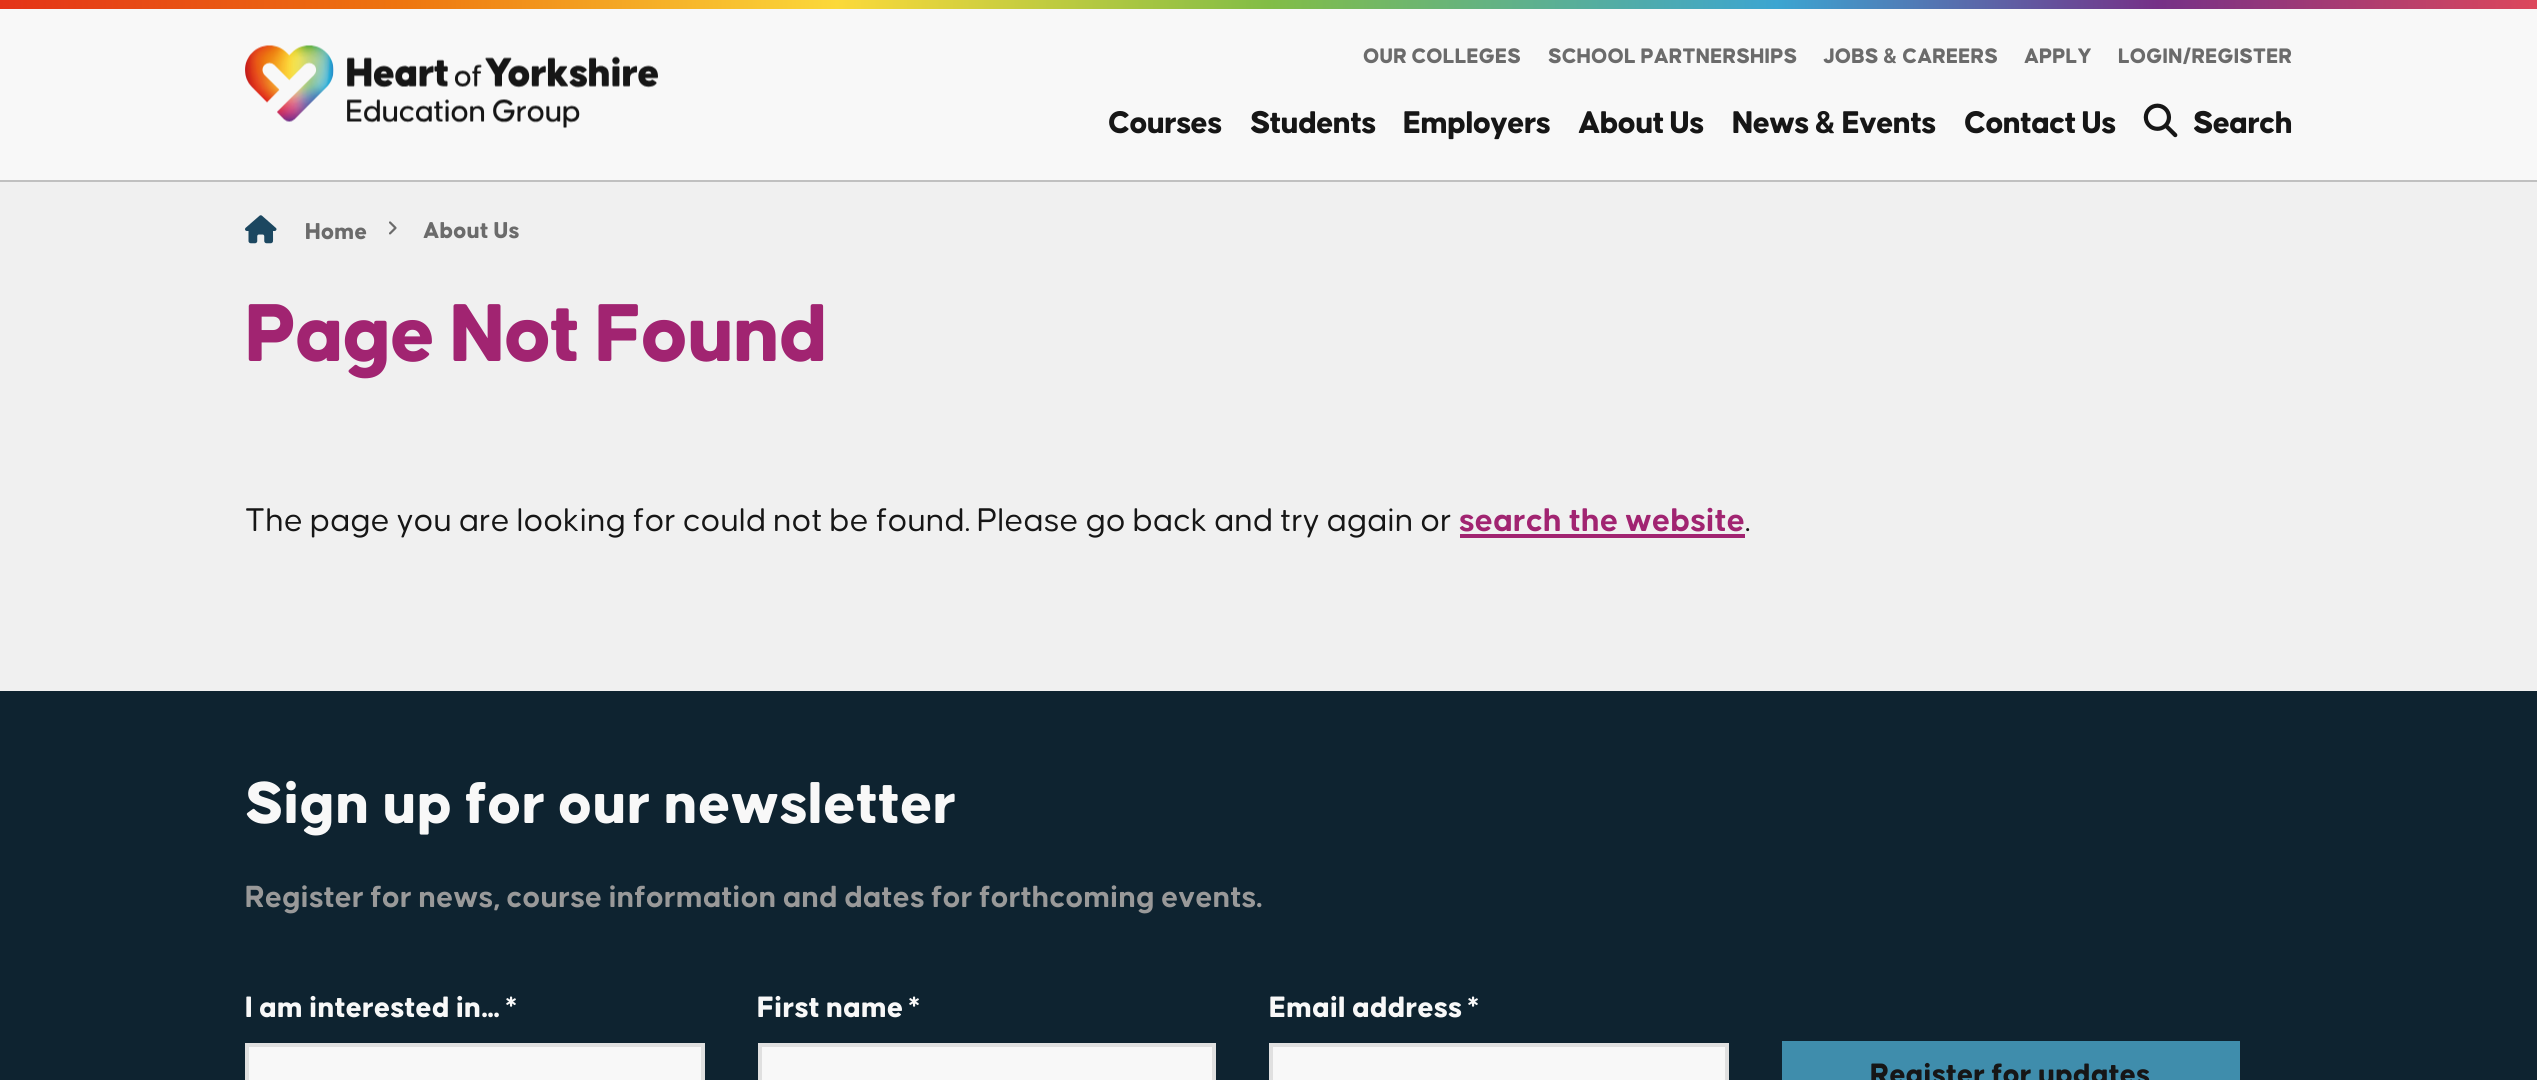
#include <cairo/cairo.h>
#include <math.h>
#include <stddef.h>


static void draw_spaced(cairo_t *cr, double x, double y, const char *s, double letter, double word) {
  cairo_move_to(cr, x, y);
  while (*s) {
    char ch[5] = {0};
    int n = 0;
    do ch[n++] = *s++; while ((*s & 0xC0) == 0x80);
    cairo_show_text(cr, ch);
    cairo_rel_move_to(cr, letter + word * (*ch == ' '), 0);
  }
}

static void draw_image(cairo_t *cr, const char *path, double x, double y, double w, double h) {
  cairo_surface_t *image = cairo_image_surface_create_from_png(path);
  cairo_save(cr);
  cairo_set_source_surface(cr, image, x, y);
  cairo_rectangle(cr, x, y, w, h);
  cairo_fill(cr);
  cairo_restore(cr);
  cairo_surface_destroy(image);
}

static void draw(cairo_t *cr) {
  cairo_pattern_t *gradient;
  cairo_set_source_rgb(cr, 240 / 255.0, 240 / 255.0, 240 / 255.0);
  cairo_paint(cr);
  cairo_set_source_rgb(cr, 192 / 255.0, 192 / 255.0, 192 / 255.0);
  cairo_rectangle(cr, 0, 180, 2537, 2);
  cairo_fill(cr);
  gradient = cairo_pattern_create_linear(0, 4.4, 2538, 4.4);
  cairo_pattern_add_color_stop_rgba(gradient, 0, 228 / 255.0, 51 / 255.0, 24 / 255.0, 1);
  cairo_pattern_add_color_stop_rgba(gradient, 0.16, 238 / 255.0, 118 / 255.0, 15 / 255.0, 1);
  cairo_pattern_add_color_stop_rgba(gradient, 0.33, 251 / 255.0, 217 / 255.0, 58 / 255.0, 1);
  cairo_pattern_add_color_stop_rgba(gradient, 0.5, 130 / 255.0, 189 / 255.0, 70 / 255.0, 1);
  cairo_pattern_add_color_stop_rgba(gradient, 0.7, 60 / 255.0, 165 / 255.0, 209 / 255.0, 1);
  cairo_pattern_add_color_stop_rgba(gradient, 0.85, 117 / 255.0, 49 / 255.0, 135 / 255.0, 1);
  cairo_pattern_add_color_stop_rgba(gradient, 1, 221 / 255.0, 71 / 255.0, 92 / 255.0, 1);
  cairo_set_source(cr, gradient);
  cairo_pattern_destroy(gradient);
  cairo_rectangle(cr, 0, 0, 2537, 9);
  cairo_fill(cr);
  cairo_set_source_rgb(cr, 248 / 255.0, 248 / 255.0, 248 / 255.0);
  cairo_rectangle(cr, 0, 9, 2537, 171);
  cairo_fill(cr);
  draw_image(cr, "images/1.png", 245, 45, 413, 84);
  draw_image(cr, "images/2.png", 2143, 103, 35, 35);
  draw_image(cr, "images/3.png", 245, 215, 32, 29);
  draw_image(cr, "images/4.png", 389, 221, 8, 14);
  cairo_set_source_rgb(cr, 161 / 255.0, 36 / 255.0, 113 / 255.0);
  cairo_rectangle(cr, 1460, 534, 285, 4);
  cairo_fill(cr);
  cairo_set_source_rgb(cr, 14 / 255.0, 35 / 255.0, 48 / 255.0);
  cairo_rectangle(cr, 0, 691, 2537, 389);
  cairo_fill(cr);
  cairo_set_source_rgb(cr, 248 / 255.0, 248 / 255.0, 248 / 255.0);
  cairo_rectangle(cr, 247, 1045, 456, 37);
  cairo_fill_preserve(cr);
  cairo_set_source_rgb(cr, 224 / 255.0, 224 / 255.0, 224 / 255.0);
  cairo_set_line_width(cr, 4);
  cairo_stroke(cr);
  cairo_set_source_rgb(cr, 248 / 255.0, 248 / 255.0, 248 / 255.0);
  cairo_rectangle(cr, 760, 1045, 454, 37);
  cairo_fill_preserve(cr);
  cairo_set_source_rgb(cr, 224 / 255.0, 224 / 255.0, 224 / 255.0);
  cairo_stroke(cr);
  cairo_set_source_rgb(cr, 248 / 255.0, 248 / 255.0, 248 / 255.0);
  cairo_rectangle(cr, 1271, 1045, 456, 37);
  cairo_fill_preserve(cr);
  cairo_set_source_rgb(cr, 224 / 255.0, 224 / 255.0, 224 / 255.0);
  cairo_stroke(cr);
  cairo_set_source_rgb(cr, 63 / 255.0, 141 / 255.0, 172 / 255.0);
  cairo_rectangle(cr, 1782, 1041, 458, 39);
  cairo_fill(cr);
  cairo_select_font_face(cr, "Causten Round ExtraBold", CAIRO_FONT_SLANT_NORMAL, CAIRO_FONT_WEIGHT_NORMAL);
  cairo_set_font_size(cr, 22.4);
  cairo_set_source_rgb(cr, 107 / 255.0, 107 / 255.0, 107 / 255.0);
  cairo_move_to(cr, 1363, 63);
  cairo_show_text(cr, "OUR COLLEGES");
  cairo_move_to(cr, 1548, 63);
  cairo_show_text(cr, "SCHOOL PARTNERSHIPS");
  cairo_move_to(cr, 1823, 63);
  cairo_show_text(cr, "JOBS & CAREERS");
  cairo_move_to(cr, 2024, 63);
  cairo_show_text(cr, "APPLY");
  cairo_move_to(cr, 2118, 63);
  cairo_show_text(cr, "LOGIN/REGISTER");
  cairo_set_font_size(cr, 33.5);
  cairo_set_source_rgb(cr, 22 / 255.0, 22 / 255.0, 22 / 255.0);
  draw_spaced(cr, 1108, 133, "Courses", -0.8, 0);
  draw_spaced(cr, 1250, 133, "Students", -0.8, 0);
  draw_spaced(cr, 1403, 133, "Employers", -0.8, 0);
  draw_spaced(cr, 1578, 133, "About Us", -0.8, 0);
  draw_spaced(cr, 1732, 133, "News & Events", -0.8, 0);
  draw_spaced(cr, 1964, 133, "Contact Us", -0.8, 0);
  draw_spaced(cr, 2193, 133, "Search", -0.8, 0);
  cairo_set_font_size(cr, 24.5);
  cairo_set_source_rgb(cr, 107 / 255.0, 107 / 255.0, 107 / 255.0);
  cairo_move_to(cr, 305, 239);
  cairo_show_text(cr, "Home");
  cairo_move_to(cr, 423, 238);
  cairo_show_text(cr, "About Us");
  cairo_set_font_size(cr, 87.5);
  cairo_set_source_rgb(cr, 161 / 255.0, 36 / 255.0, 113 / 255.0);
  draw_spaced(cr, 245, 361, "Page Not Found", -1.75, 0);
  cairo_select_font_face(cr, "Causten Round", CAIRO_FONT_SLANT_NORMAL, CAIRO_FONT_WEIGHT_NORMAL);
  cairo_set_font_size(cr, 35);
  cairo_set_source_rgb(cr, 22 / 255.0, 22 / 255.0, 22 / 255.0);
  cairo_move_to(cr, 245, 531);
  cairo_show_text(cr, "The page you are looking for could not be found. Please go back and try again or");
  cairo_select_font_face(cr, "Causten Round", CAIRO_FONT_SLANT_NORMAL, CAIRO_FONT_WEIGHT_BOLD);
  cairo_set_source_rgb(cr, 161 / 255.0, 36 / 255.0, 113 / 255.0);
  cairo_move_to(cr, 1459, 531);
  cairo_show_text(cr, "search the website");
  cairo_select_font_face(cr, "Causten Round", CAIRO_FONT_SLANT_NORMAL, CAIRO_FONT_WEIGHT_NORMAL);
  cairo_set_source_rgb(cr, 22 / 255.0, 22 / 255.0, 22 / 255.0);
  cairo_move_to(cr, 1745, 531);
  cairo_show_text(cr, ".");
  cairo_select_font_face(cr, "Causten Round ExtraBold", CAIRO_FONT_SLANT_NORMAL, CAIRO_FONT_WEIGHT_NORMAL);
  cairo_set_font_size(cr, 63);
  cairo_set_source_rgb(cr, 248 / 255.0, 248 / 255.0, 248 / 255.0);
  cairo_move_to(cr, 245, 823);
  cairo_show_text(cr, "Sign up for our newsletter");
  cairo_select_font_face(cr, "Causten Round", CAIRO_FONT_SLANT_NORMAL, CAIRO_FONT_WEIGHT_BOLD);
  cairo_set_font_size(cr, 32.7);
  cairo_set_source_rgb(cr, 153 / 255.0, 153 / 255.0, 153 / 255.0);
  cairo_move_to(cr, 245, 907);
  cairo_show_text(cr, "Register for news, course information and dates for forthcoming events.");
  cairo_select_font_face(cr, "Causten Round ExtraBold", CAIRO_FONT_SLANT_NORMAL, CAIRO_FONT_WEIGHT_NORMAL);
  cairo_set_font_size(cr, 31.5);
  cairo_set_source_rgb(cr, 248 / 255.0, 248 / 255.0, 248 / 255.0);
  cairo_move_to(cr, 245, 1017);
  cairo_show_text(cr, "I am interested in...");
  cairo_select_font_face(cr, "Causten Round", CAIRO_FONT_SLANT_NORMAL, CAIRO_FONT_WEIGHT_BOLD);
  cairo_move_to(cr, 505, 1017);
  cairo_show_text(cr, "*");
  cairo_select_font_face(cr, "Causten Round ExtraBold", CAIRO_FONT_SLANT_NORMAL, CAIRO_FONT_WEIGHT_NORMAL);
  cairo_move_to(cr, 757, 1017);
  cairo_show_text(cr, "First name");
  cairo_select_font_face(cr, "Causten Round", CAIRO_FONT_SLANT_NORMAL, CAIRO_FONT_WEIGHT_BOLD);
  cairo_move_to(cr, 908, 1017);
  cairo_show_text(cr, "*");
  cairo_select_font_face(cr, "Causten Round ExtraBold", CAIRO_FONT_SLANT_NORMAL, CAIRO_FONT_WEIGHT_NORMAL);
  cairo_move_to(cr, 1269, 1017);
  cairo_show_text(cr, "Email address");
  cairo_select_font_face(cr, "Causten Round", CAIRO_FONT_SLANT_NORMAL, CAIRO_FONT_WEIGHT_BOLD);
  cairo_move_to(cr, 1467, 1017);
  cairo_show_text(cr, "*");
  cairo_select_font_face(cr, "Causten Round ExtraBold", CAIRO_FONT_SLANT_NORMAL, CAIRO_FONT_WEIGHT_NORMAL);
  cairo_set_source_rgb(cr, 22 / 255.0, 22 / 255.0, 22 / 255.0);
  cairo_move_to(cr, 1870, 1084);
  cairo_show_text(cr, "Register for updates");
}

int main(void) {
  cairo_surface_t *surface = cairo_image_surface_create(CAIRO_FORMAT_RGB24, 2537, 1080);
  cairo_t *cr = cairo_create(surface);
  cairo_font_options_t *options = cairo_font_options_create();
  cairo_font_options_set_hint_metrics(options, CAIRO_HINT_METRICS_OFF);
  cairo_font_options_set_hint_style(options, CAIRO_HINT_STYLE_NONE);
  cairo_set_font_options(cr, options);
  cairo_set_miter_limit(cr, 4);
  draw(cr);
  cairo_surface_write_to_png(surface, "out.png");
  cairo_font_options_destroy(options);
  cairo_destroy(cr);
  cairo_surface_destroy(surface);
  return 0;
}
